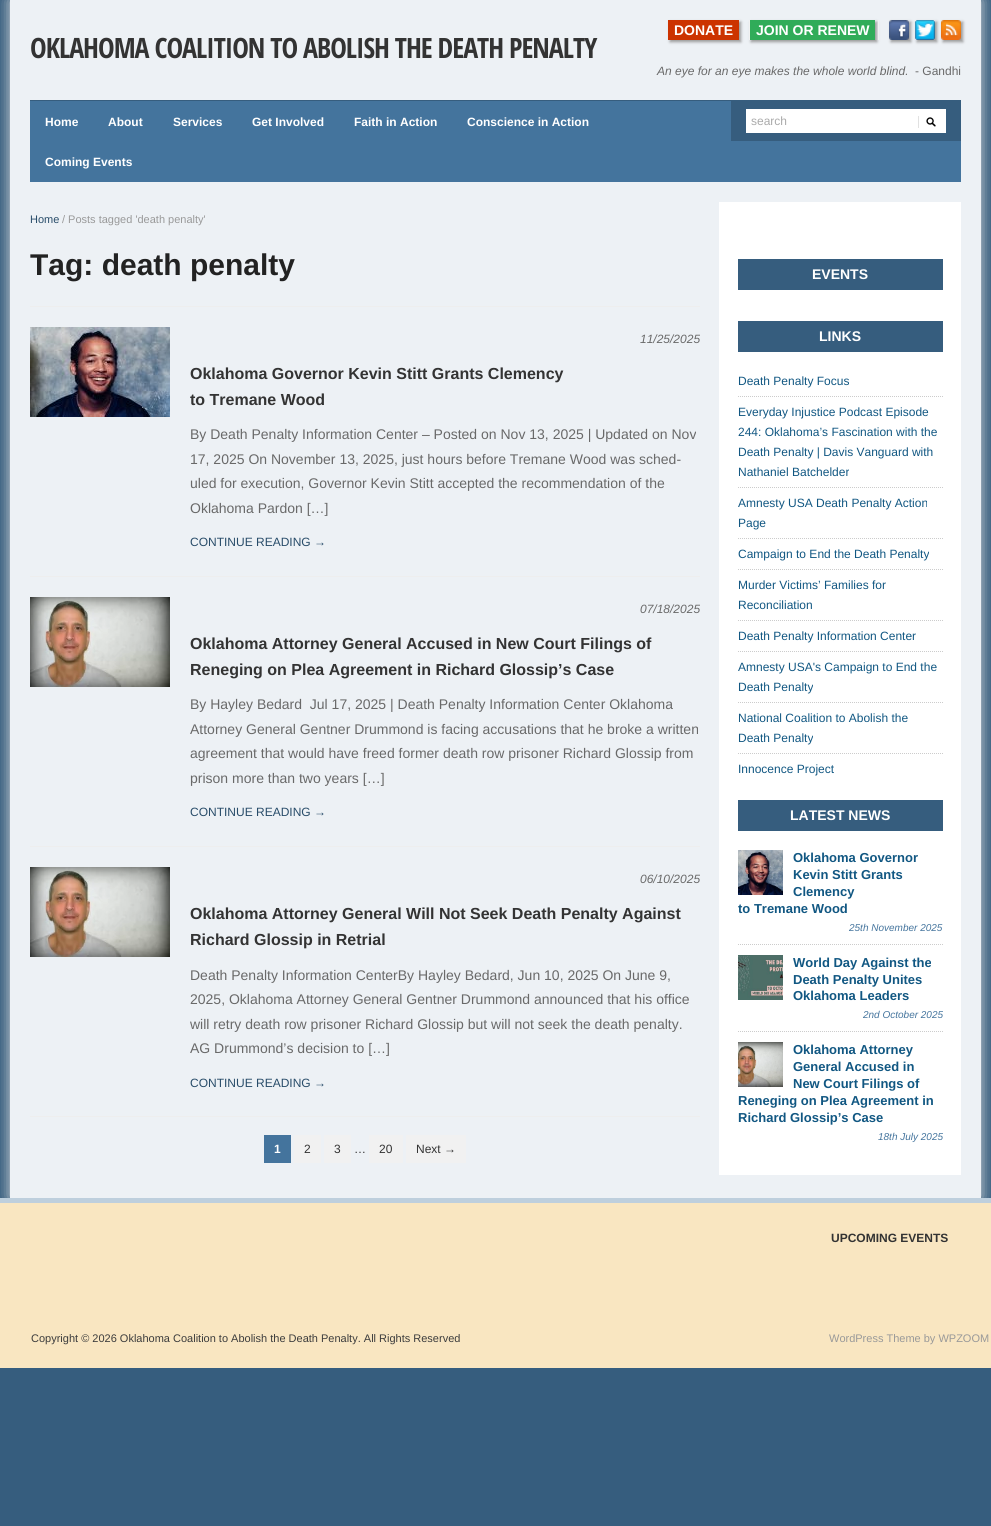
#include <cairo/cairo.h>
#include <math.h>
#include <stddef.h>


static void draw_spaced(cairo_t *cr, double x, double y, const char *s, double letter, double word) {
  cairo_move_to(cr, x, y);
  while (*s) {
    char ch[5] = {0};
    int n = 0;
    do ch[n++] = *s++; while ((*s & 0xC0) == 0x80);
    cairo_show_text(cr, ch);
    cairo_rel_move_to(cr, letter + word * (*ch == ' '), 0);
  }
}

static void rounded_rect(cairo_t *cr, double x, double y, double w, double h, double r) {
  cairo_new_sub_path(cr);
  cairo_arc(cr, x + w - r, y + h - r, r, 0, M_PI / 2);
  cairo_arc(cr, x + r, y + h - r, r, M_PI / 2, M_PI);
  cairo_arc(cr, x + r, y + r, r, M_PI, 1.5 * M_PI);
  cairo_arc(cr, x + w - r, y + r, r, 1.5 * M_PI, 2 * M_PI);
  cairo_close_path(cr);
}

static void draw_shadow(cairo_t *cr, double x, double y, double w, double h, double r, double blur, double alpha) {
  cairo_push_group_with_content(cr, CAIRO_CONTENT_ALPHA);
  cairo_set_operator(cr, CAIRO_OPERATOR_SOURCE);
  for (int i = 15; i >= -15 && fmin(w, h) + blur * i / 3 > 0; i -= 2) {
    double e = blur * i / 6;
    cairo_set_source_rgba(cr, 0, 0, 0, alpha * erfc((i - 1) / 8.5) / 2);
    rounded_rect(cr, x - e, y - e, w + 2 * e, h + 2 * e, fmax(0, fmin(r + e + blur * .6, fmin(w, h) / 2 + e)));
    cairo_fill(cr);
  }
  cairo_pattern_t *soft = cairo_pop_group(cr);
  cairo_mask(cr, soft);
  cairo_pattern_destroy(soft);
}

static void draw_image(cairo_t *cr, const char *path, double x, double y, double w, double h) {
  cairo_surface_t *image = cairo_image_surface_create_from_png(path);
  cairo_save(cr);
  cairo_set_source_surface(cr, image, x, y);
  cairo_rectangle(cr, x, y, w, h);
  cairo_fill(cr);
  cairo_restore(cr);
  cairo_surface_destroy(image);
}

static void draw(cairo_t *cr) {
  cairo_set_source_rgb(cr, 54 / 255.0, 93 / 255.0, 126 / 255.0);
  cairo_paint(cr);
  cairo_set_source_rgb(cr, 225 / 255.0, 225 / 255.0, 225 / 255.0);
  draw_shadow(cr, 10, 0, 971, 1198, 0, 7.5, 1);
  cairo_set_source_rgb(cr, 237 / 255.0, 241 / 255.0, 245 / 255.0);
  cairo_rectangle(cr, 10, 0, 971, 1198);
  cairo_fill(cr);
  cairo_set_source_rgb(cr, 153 / 255.0, 153 / 255.0, 153 / 255.0);
  draw_shadow(cr, 670, 22, 71, 20, 0, 1.5, 1);
  cairo_set_source_rgb(cr, 204 / 255.0, 51 / 255.0, 0);
  cairo_rectangle(cr, 668, 20, 71, 20);
  cairo_fill(cr);
  cairo_set_source_rgb(cr, 153 / 255.0, 153 / 255.0, 153 / 255.0);
  draw_shadow(cr, 751, 22, 126, 20, 0, 1.5, 1);
  cairo_set_source_rgb(cr, 48 / 255.0, 172 / 255.0, 89 / 255.0);
  cairo_rectangle(cr, 750, 20, 125, 20);
  cairo_fill(cr);
  cairo_set_source_rgb(cr, 241 / 255.0, 241 / 255.0, 241 / 255.0);
  cairo_rectangle(cr, 749, 20, 1, 20);
  cairo_fill(cr);
  cairo_rectangle(cr, 878, 20, 1, 20);
  cairo_fill(cr);
  cairo_set_source_rgb(cr, 153 / 255.0, 153 / 255.0, 153 / 255.0);
  draw_shadow(cr, 891, 22, 20, 20, 0, 1.5, 1);
  draw_shadow(cr, 917, 22, 20, 20, 0, 1.5, 1);
  draw_shadow(cr, 943, 22, 20, 20, 0, 1.5, 1);
  draw_image(cr, "images/1.png", 889, 20, 20, 20);
  draw_image(cr, "images/2.png", 915, 20, 20, 20);
  draw_image(cr, "images/3.png", 941, 20, 20, 20);
  cairo_set_source_rgb(cr, 68 / 255.0, 116 / 255.0, 157 / 255.0);
  cairo_rectangle(cr, 30, 101, 931, 81);
  cairo_fill(cr);
  cairo_set_source_rgb(cr, 54 / 255.0, 93 / 255.0, 126 / 255.0);
  cairo_rectangle(cr, 30, 100, 931, 1);
  cairo_fill(cr);
  cairo_rectangle(cr, 731, 101, 230, 40);
  cairo_fill(cr);
  cairo_set_source_rgb(cr, 1, 1, 1);
  cairo_rectangle(cr, 746, 109, 200, 24);
  cairo_fill(cr);
  draw_image(cr, "images/4.png", 918, 116, 18, 12);
  cairo_set_source_rgb(cr, 238 / 255.0, 238 / 255.0, 238 / 255.0);
  cairo_rectangle(cr, 30, 306, 670, 1);
  cairo_fill(cr);
  cairo_rectangle(cr, 30, 576, 670, 1);
  cairo_fill(cr);
  draw_image(cr, "images/5.png", 30, 327, 140, 90);
  cairo_rectangle(cr, 30, 846, 670, 1);
  cairo_fill(cr);
  draw_image(cr, "images/6.png", 30, 597, 140, 90);
  cairo_rectangle(cr, 30, 1116, 670, 1);
  cairo_fill(cr);
  draw_image(cr, "images/6.png", 30, 867, 140, 90);
  cairo_set_source_rgb(cr, 68 / 255.0, 116 / 255.0, 157 / 255.0);
  cairo_rectangle(cr, 264, 1135, 27, 28);
  cairo_fill(cr);
  cairo_set_source_rgb(cr, 241 / 255.0, 241 / 255.0, 241 / 255.0);
  cairo_rectangle(cr, 294, 1135, 27, 28);
  cairo_fill(cr);
  cairo_rectangle(cr, 324, 1135, 27, 28);
  cairo_fill(cr);
  cairo_rectangle(cr, 369, 1135, 34, 28);
  cairo_fill(cr);
  cairo_rectangle(cr, 406, 1135, 60, 28);
  cairo_fill(cr);
  cairo_set_source_rgb(cr, 1, 1, 1);
  cairo_rectangle(cr, 719, 202, 242, 973);
  cairo_fill(cr);
  cairo_set_source_rgb(cr, 54 / 255.0, 93 / 255.0, 126 / 255.0);
  cairo_rectangle(cr, 738, 259, 205, 31);
  cairo_fill(cr);
  cairo_rectangle(cr, 738, 321, 205, 31);
  cairo_fill(cr);
  cairo_new_path(cr);
  cairo_move_to(cr, 738, 396.5);
  cairo_line_to(cr, 943, 396.5);
  cairo_set_source_rgb(cr, 204 / 255.0, 204 / 255.0, 204 / 255.0);
  cairo_set_line_width(cr, 1);
  cairo_set_dash(cr, (double[]){1, 1}, 2, 0);
  cairo_stroke(cr);
  cairo_new_path(cr);
  cairo_move_to(cr, 738, 487.5);
  cairo_line_to(cr, 943, 487.5);
  cairo_stroke(cr);
  cairo_new_path(cr);
  cairo_move_to(cr, 738, 538.5);
  cairo_line_to(cr, 943, 538.5);
  cairo_stroke(cr);
  cairo_new_path(cr);
  cairo_move_to(cr, 738, 569.5);
  cairo_line_to(cr, 943, 569.5);
  cairo_stroke(cr);
  cairo_new_path(cr);
  cairo_move_to(cr, 738, 620.5);
  cairo_line_to(cr, 943, 620.5);
  cairo_stroke(cr);
  cairo_new_path(cr);
  cairo_move_to(cr, 738, 651.5);
  cairo_line_to(cr, 943, 651.5);
  cairo_stroke(cr);
  cairo_new_path(cr);
  cairo_move_to(cr, 738, 702.5);
  cairo_line_to(cr, 943, 702.5);
  cairo_stroke(cr);
  cairo_new_path(cr);
  cairo_move_to(cr, 738, 753.5);
  cairo_line_to(cr, 943, 753.5);
  cairo_stroke(cr);
  cairo_set_source_rgb(cr, 54 / 255.0, 93 / 255.0, 126 / 255.0);
  cairo_rectangle(cr, 738, 800, 205, 31);
  cairo_fill(cr);
  cairo_new_path(cr);
  cairo_move_to(cr, 738, 944.5);
  cairo_line_to(cr, 943, 944.5);
  cairo_set_source_rgb(cr, 204 / 255.0, 204 / 255.0, 204 / 255.0);
  cairo_stroke(cr);
  draw_image(cr, "images/7.png", 738, 850, 45, 45);
  cairo_new_path(cr);
  cairo_move_to(cr, 738, 1031.5);
  cairo_line_to(cr, 943, 1031.5);
  cairo_stroke(cr);
  draw_image(cr, "images/8.png", 738, 955, 45, 45);
  draw_image(cr, "images/9.png", 738, 1042, 45, 45);
  cairo_set_source_rgb(cr, 249 / 255.0, 230 / 255.0, 193 / 255.0);
  cairo_rectangle(cr, 0, 1203, 991, 165);
  cairo_fill(cr);
  cairo_set_source_rgb(cr, 190 / 255.0, 207 / 255.0, 221 / 255.0);
  cairo_rectangle(cr, 0, 1198, 991, 5);
  cairo_fill(cr);
  cairo_select_font_face(cr, "Liberation Sans", CAIRO_FONT_SLANT_NORMAL, CAIRO_FONT_WEIGHT_BOLD);
  cairo_set_font_size(cr, 14);
  cairo_set_source_rgb(cr, 1, 1, 1);
  cairo_move_to(cr, 674, 35);
  cairo_show_text(cr, "DONATE");
  cairo_move_to(cr, 756, 35);
  cairo_show_text(cr, "JOIN OR RENEW");
  cairo_select_font_face(cr, "Open Sans Condensed", CAIRO_FONT_SLANT_NORMAL, CAIRO_FONT_WEIGHT_BOLD);
  cairo_set_font_size(cr, 28);
  cairo_set_source_rgb(cr, 51 / 255.0, 51 / 255.0, 51 / 255.0);
  draw_spaced(cr, 30, 58, "OKLAHOMA COALITION TO ABOLISH THE DEATH PENALTY", -1, 0);
  cairo_select_font_face(cr, "Liberation Sans", CAIRO_FONT_SLANT_ITALIC, CAIRO_FONT_WEIGHT_NORMAL);
  cairo_set_font_size(cr, 12);
  cairo_set_source_rgb(cr, 105 / 255.0, 105 / 255.0, 105 / 255.0);
  cairo_move_to(cr, 657, 75);
  cairo_show_text(cr, "An eye for an eye makes the whole world blind.");
  cairo_select_font_face(cr, "Liberation Sans", CAIRO_FONT_SLANT_NORMAL, CAIRO_FONT_WEIGHT_NORMAL);
  cairo_move_to(cr, 915, 75);
  cairo_show_text(cr, "- Gandhi");
  cairo_select_font_face(cr, "Liberation Sans", CAIRO_FONT_SLANT_NORMAL, CAIRO_FONT_WEIGHT_BOLD);
  cairo_set_source_rgb(cr, 1, 1, 1);
  cairo_move_to(cr, 45, 126);
  cairo_show_text(cr, "Home");
  cairo_move_to(cr, 108, 126);
  cairo_show_text(cr, "About");
  cairo_move_to(cr, 173, 126);
  cairo_show_text(cr, "Services");
  cairo_move_to(cr, 252, 126);
  cairo_show_text(cr, "Get Involved");
  cairo_move_to(cr, 354, 126);
  cairo_show_text(cr, "Faith in Action");
  cairo_move_to(cr, 467, 126);
  cairo_show_text(cr, "Conscience in Action");
  cairo_move_to(cr, 45, 166);
  cairo_show_text(cr, "Coming Events");
  cairo_select_font_face(cr, "Liberation Sans", CAIRO_FONT_SLANT_NORMAL, CAIRO_FONT_WEIGHT_NORMAL);
  cairo_set_source_rgb(cr, 170 / 255.0, 170 / 255.0, 170 / 255.0);
  cairo_move_to(cr, 751, 125);
  cairo_show_text(cr, "search");
  cairo_set_font_size(cr, 11);
  cairo_set_source_rgb(cr, 40 / 255.0, 76 / 255.0, 105 / 255.0);
  cairo_move_to(cr, 30, 223);
  cairo_show_text(cr, "Home");
  cairo_set_source_rgb(cr, 153 / 255.0, 153 / 255.0, 153 / 255.0);
  cairo_move_to(cr, 62, 223);
  cairo_show_text(cr, "/ Posts tagged 'death penalty'");
  cairo_select_font_face(cr, "Liberation Sans", CAIRO_FONT_SLANT_NORMAL, CAIRO_FONT_WEIGHT_BOLD);
  cairo_set_font_size(cr, 30);
  cairo_set_source_rgb(cr, 34 / 255.0, 34 / 255.0, 34 / 255.0);
  cairo_move_to(cr, 30, 275);
  cairo_show_text(cr, "Tag: death penalty");
  cairo_select_font_face(cr, "Liberation Sans", CAIRO_FONT_SLANT_ITALIC, CAIRO_FONT_WEIGHT_NORMAL);
  cairo_set_font_size(cr, 12);
  cairo_set_source_rgb(cr, 105 / 255.0, 105 / 255.0, 105 / 255.0);
  cairo_move_to(cr, 640, 343);
  cairo_show_text(cr, "11/25/2025");
  cairo_select_font_face(cr, "Liberation Sans", CAIRO_FONT_SLANT_NORMAL, CAIRO_FONT_WEIGHT_BOLD);
  cairo_set_font_size(cr, 16);
  cairo_set_source_rgb(cr, 51 / 255.0, 51 / 255.0, 51 / 255.0);
  cairo_move_to(cr, 190, 379);
  cairo_show_text(cr, "Oklahoma Governor Kevin Stitt Grants Clemency");
  cairo_move_to(cr, 190, 405);
  cairo_show_text(cr, "to Tremane Wood");
  cairo_select_font_face(cr, "Liberation Sans", CAIRO_FONT_SLANT_NORMAL, CAIRO_FONT_WEIGHT_NORMAL);
  cairo_set_font_size(cr, 14);
  cairo_set_source_rgb(cr, 105 / 255.0, 105 / 255.0, 105 / 255.0);
  cairo_move_to(cr, 190, 439);
  cairo_show_text(cr, "By Death Penalty Information Center – Posted on Nov 13, 2025 | Updated on Nov");
  cairo_move_to(cr, 190, 464);
  cairo_show_text(cr, "17, 2025 On November 13, 2025, just hours before Tremane Wood was sched-");
  cairo_move_to(cr, 190, 488);
  cairo_show_text(cr, "uled for execution, Governor Kevin Stitt accepted the recommendation of the");
  cairo_move_to(cr, 190, 513);
  cairo_show_text(cr, "Oklahoma Pardon […]");
  cairo_set_font_size(cr, 12);
  cairo_set_source_rgb(cr, 40 / 255.0, 76 / 255.0, 105 / 255.0);
  cairo_move_to(cr, 190, 546);
  cairo_show_text(cr, "CONTINUE READING →");
  cairo_select_font_face(cr, "Liberation Sans", CAIRO_FONT_SLANT_ITALIC, CAIRO_FONT_WEIGHT_NORMAL);
  cairo_set_source_rgb(cr, 105 / 255.0, 105 / 255.0, 105 / 255.0);
  cairo_move_to(cr, 640, 613);
  cairo_show_text(cr, "07/18/2025");
  cairo_select_font_face(cr, "Liberation Sans", CAIRO_FONT_SLANT_NORMAL, CAIRO_FONT_WEIGHT_BOLD);
  cairo_set_font_size(cr, 16);
  cairo_set_source_rgb(cr, 51 / 255.0, 51 / 255.0, 51 / 255.0);
  cairo_move_to(cr, 190, 649);
  cairo_show_text(cr, "Oklahoma Attorney General Accused in New Court Filings of");
  cairo_move_to(cr, 190, 675);
  cairo_show_text(cr, "Reneging on Plea Agreement in Richard Glossip’s Case");
  cairo_select_font_face(cr, "Liberation Sans", CAIRO_FONT_SLANT_NORMAL, CAIRO_FONT_WEIGHT_NORMAL);
  cairo_set_font_size(cr, 14);
  cairo_set_source_rgb(cr, 105 / 255.0, 105 / 255.0, 105 / 255.0);
  cairo_move_to(cr, 190, 709);
  cairo_show_text(cr, "By Hayley Bedard  Jul 17, 2025 | Death Penalty Information Center Oklahoma");
  cairo_move_to(cr, 190, 734);
  cairo_show_text(cr, "Attorney General Gentner Drummond is facing accusations that he broke a written");
  cairo_move_to(cr, 190, 758);
  cairo_show_text(cr, "agreement that would have freed former death row prisoner Richard Glossip from");
  cairo_move_to(cr, 190, 783);
  cairo_show_text(cr, "prison more than two years […]");
  cairo_set_font_size(cr, 12);
  cairo_set_source_rgb(cr, 40 / 255.0, 76 / 255.0, 105 / 255.0);
  cairo_move_to(cr, 190, 816);
  cairo_show_text(cr, "CONTINUE READING →");
  cairo_select_font_face(cr, "Liberation Sans", CAIRO_FONT_SLANT_ITALIC, CAIRO_FONT_WEIGHT_NORMAL);
  cairo_set_source_rgb(cr, 105 / 255.0, 105 / 255.0, 105 / 255.0);
  cairo_move_to(cr, 640, 883);
  cairo_show_text(cr, "06/10/2025");
  cairo_select_font_face(cr, "Liberation Sans", CAIRO_FONT_SLANT_NORMAL, CAIRO_FONT_WEIGHT_BOLD);
  cairo_set_font_size(cr, 16);
  cairo_set_source_rgb(cr, 51 / 255.0, 51 / 255.0, 51 / 255.0);
  cairo_move_to(cr, 190, 919);
  cairo_show_text(cr, "Oklahoma Attorney General Will Not Seek Death Penalty Against");
  cairo_move_to(cr, 190, 945);
  cairo_show_text(cr, "Richard Glossip in Retrial");
  cairo_select_font_face(cr, "Liberation Sans", CAIRO_FONT_SLANT_NORMAL, CAIRO_FONT_WEIGHT_NORMAL);
  cairo_set_font_size(cr, 14);
  cairo_set_source_rgb(cr, 105 / 255.0, 105 / 255.0, 105 / 255.0);
  cairo_move_to(cr, 190, 980);
  cairo_show_text(cr, "Death Penalty Information CenterBy Hayley Bedard, Jun 10, 2025 On June 9,");
  cairo_move_to(cr, 190, 1004);
  cairo_show_text(cr, "2025, Oklahoma Attorney General Gentner Drummond announced that his office");
  cairo_move_to(cr, 190, 1029);
  cairo_show_text(cr, "will retry death row prisoner Richard Glossip but will not seek the death penalty.");
  cairo_move_to(cr, 190, 1053);
  cairo_show_text(cr, "AG Drummond’s decision to […]");
  cairo_set_font_size(cr, 12);
  cairo_set_source_rgb(cr, 40 / 255.0, 76 / 255.0, 105 / 255.0);
  cairo_move_to(cr, 190, 1087);
  cairo_show_text(cr, "CONTINUE READING →");
  cairo_select_font_face(cr, "Liberation Sans", CAIRO_FONT_SLANT_NORMAL, CAIRO_FONT_WEIGHT_BOLD);
  cairo_set_source_rgb(cr, 1, 1, 1);
  cairo_move_to(cr, 274, 1153);
  cairo_show_text(cr, "1");
  cairo_select_font_face(cr, "Liberation Sans", CAIRO_FONT_SLANT_NORMAL, CAIRO_FONT_WEIGHT_NORMAL);
  cairo_set_source_rgb(cr, 51 / 255.0, 51 / 255.0, 51 / 255.0);
  cairo_move_to(cr, 304, 1153);
  cairo_show_text(cr, "2");
  cairo_move_to(cr, 334, 1153);
  cairo_show_text(cr, "3");
  cairo_move_to(cr, 354, 1153);
  cairo_show_text(cr, "…");
  cairo_move_to(cr, 379, 1153);
  cairo_show_text(cr, "20");
  cairo_move_to(cr, 416, 1153);
  cairo_show_text(cr, "Next →");
  cairo_select_font_face(cr, "Liberation Sans", CAIRO_FONT_SLANT_NORMAL, CAIRO_FONT_WEIGHT_BOLD);
  cairo_set_font_size(cr, 14);
  cairo_set_source_rgb(cr, 1, 1, 1);
  cairo_move_to(cr, 812, 279);
  cairo_show_text(cr, "EVENTS");
  cairo_move_to(cr, 819, 341);
  cairo_show_text(cr, "LINKS");
  cairo_select_font_face(cr, "Liberation Sans", CAIRO_FONT_SLANT_NORMAL, CAIRO_FONT_WEIGHT_NORMAL);
  cairo_set_font_size(cr, 12);
  cairo_set_source_rgb(cr, 17 / 255.0, 87 / 255.0, 130 / 255.0);
  cairo_move_to(cr, 738, 385);
  cairo_show_text(cr, "Death Penalty Focus");
  cairo_move_to(cr, 738, 416);
  cairo_show_text(cr, "Everyday Injustice Podcast Episode");
  cairo_move_to(cr, 738, 436);
  cairo_show_text(cr, "244: Oklahoma’s Fascination with the");
  cairo_move_to(cr, 738, 456);
  cairo_show_text(cr, "Death Penalty | Davis Vanguard with");
  cairo_move_to(cr, 738, 476);
  cairo_show_text(cr, "Nathaniel Batchelder");
  cairo_move_to(cr, 738, 507);
  cairo_show_text(cr, "Amnesty USA Death Penalty Action");
  cairo_move_to(cr, 738, 527);
  cairo_show_text(cr, "Page");
  cairo_move_to(cr, 738, 558);
  cairo_show_text(cr, "Campaign to End the Death Penalty");
  cairo_move_to(cr, 738, 589);
  cairo_show_text(cr, "Murder Victims’ Families for");
  cairo_move_to(cr, 738, 609);
  cairo_show_text(cr, "Reconciliation");
  cairo_move_to(cr, 738, 640);
  cairo_show_text(cr, "Death Penalty Information Center");
  cairo_move_to(cr, 738, 671);
  cairo_show_text(cr, "Amnesty USA's Campaign to End the");
  cairo_move_to(cr, 738, 691);
  cairo_show_text(cr, "Death Penalty");
  cairo_move_to(cr, 738, 722);
  cairo_show_text(cr, "National Coalition to Abolish the");
  cairo_move_to(cr, 738, 742);
  cairo_show_text(cr, "Death Penalty");
  cairo_move_to(cr, 738, 773);
  cairo_show_text(cr, "Innocence Project");
  cairo_select_font_face(cr, "Liberation Sans", CAIRO_FONT_SLANT_NORMAL, CAIRO_FONT_WEIGHT_BOLD);
  cairo_set_font_size(cr, 14);
  cairo_set_source_rgb(cr, 1, 1, 1);
  cairo_move_to(cr, 790, 820);
  cairo_show_text(cr, "LATEST NEWS");
  cairo_set_font_size(cr, 13);
  cairo_set_source_rgb(cr, 17 / 255.0, 87 / 255.0, 130 / 255.0);
  cairo_move_to(cr, 793, 862);
  cairo_show_text(cr, "Oklahoma Governor");
  cairo_move_to(cr, 793, 879);
  cairo_show_text(cr, "Kevin Stitt Grants");
  cairo_move_to(cr, 793, 896);
  cairo_show_text(cr, "Clemency");
  cairo_move_to(cr, 738, 913);
  cairo_show_text(cr, "to Tremane Wood");
  cairo_select_font_face(cr, "Liberation Sans", CAIRO_FONT_SLANT_ITALIC, CAIRO_FONT_WEIGHT_NORMAL);
  cairo_set_font_size(cr, 10);
  cairo_set_source_rgb(cr, 68 / 255.0, 116 / 255.0, 157 / 255.0);
  cairo_move_to(cr, 849, 931);
  cairo_show_text(cr, "25th November 2025");
  cairo_select_font_face(cr, "Liberation Sans", CAIRO_FONT_SLANT_NORMAL, CAIRO_FONT_WEIGHT_BOLD);
  cairo_set_font_size(cr, 13);
  cairo_set_source_rgb(cr, 17 / 255.0, 87 / 255.0, 130 / 255.0);
  cairo_move_to(cr, 793, 967);
  cairo_show_text(cr, "World Day Against the");
  cairo_move_to(cr, 793, 984);
  cairo_show_text(cr, "Death Penalty Unites");
  cairo_move_to(cr, 793, 1000);
  cairo_show_text(cr, "Oklahoma Leaders");
  cairo_select_font_face(cr, "Liberation Sans", CAIRO_FONT_SLANT_ITALIC, CAIRO_FONT_WEIGHT_NORMAL);
  cairo_set_font_size(cr, 10);
  cairo_set_source_rgb(cr, 68 / 255.0, 116 / 255.0, 157 / 255.0);
  cairo_move_to(cr, 863, 1018);
  cairo_show_text(cr, "2nd October 2025");
  cairo_select_font_face(cr, "Liberation Sans", CAIRO_FONT_SLANT_NORMAL, CAIRO_FONT_WEIGHT_BOLD);
  cairo_set_font_size(cr, 13);
  cairo_set_source_rgb(cr, 17 / 255.0, 87 / 255.0, 130 / 255.0);
  cairo_move_to(cr, 793, 1054);
  cairo_show_text(cr, "Oklahoma Attorney");
  cairo_move_to(cr, 793, 1071);
  cairo_show_text(cr, "General Accused in");
  cairo_move_to(cr, 793, 1088);
  cairo_show_text(cr, "New Court Filings of");
  cairo_move_to(cr, 738, 1105);
  cairo_show_text(cr, "Reneging on Plea Agreement in");
  cairo_move_to(cr, 738, 1122);
  cairo_show_text(cr, "Richard Glossip’s Case");
  cairo_select_font_face(cr, "Liberation Sans", CAIRO_FONT_SLANT_ITALIC, CAIRO_FONT_WEIGHT_NORMAL);
  cairo_set_font_size(cr, 10);
  cairo_set_source_rgb(cr, 68 / 255.0, 116 / 255.0, 157 / 255.0);
  cairo_move_to(cr, 878, 1140);
  cairo_show_text(cr, "18th July 2025");
  cairo_select_font_face(cr, "Liberation Sans", CAIRO_FONT_SLANT_NORMAL, CAIRO_FONT_WEIGHT_BOLD);
  cairo_set_font_size(cr, 12);
  cairo_set_source_rgb(cr, 51 / 255.0, 51 / 255.0, 51 / 255.0);
  cairo_move_to(cr, 831, 1242);
  cairo_show_text(cr, "UPCOMING EVENTS");
  cairo_select_font_face(cr, "Liberation Sans", CAIRO_FONT_SLANT_NORMAL, CAIRO_FONT_WEIGHT_NORMAL);
  cairo_set_font_size(cr, 11);
  cairo_set_source_rgb(cr, 60 / 255.0, 60 / 255.0, 60 / 255.0);
  cairo_move_to(cr, 31, 1342);
  cairo_show_text(cr, "Copyright © 2026 Oklahoma Coalition to Abolish the Death Penalty. All Rights Reserved");
  cairo_set_source_rgb(cr, 153 / 255.0, 153 / 255.0, 153 / 255.0);
  cairo_move_to(cr, 829, 1342);
  cairo_show_text(cr, "WordPress Theme by WPZOOM");
}

int main(void) {
  cairo_surface_t *surface = cairo_image_surface_create(CAIRO_FORMAT_RGB24, 991, 1526);
  cairo_t *cr = cairo_create(surface);
  cairo_font_options_t *options = cairo_font_options_create();
  cairo_font_options_set_hint_metrics(options, CAIRO_HINT_METRICS_OFF);
  cairo_font_options_set_hint_style(options, CAIRO_HINT_STYLE_NONE);
  cairo_set_font_options(cr, options);
  cairo_set_miter_limit(cr, 4);
  draw(cr);
  cairo_surface_write_to_png(surface, "out.png");
  cairo_font_options_destroy(options);
  cairo_destroy(cr);
  cairo_surface_destroy(surface);
  return 0;
}
